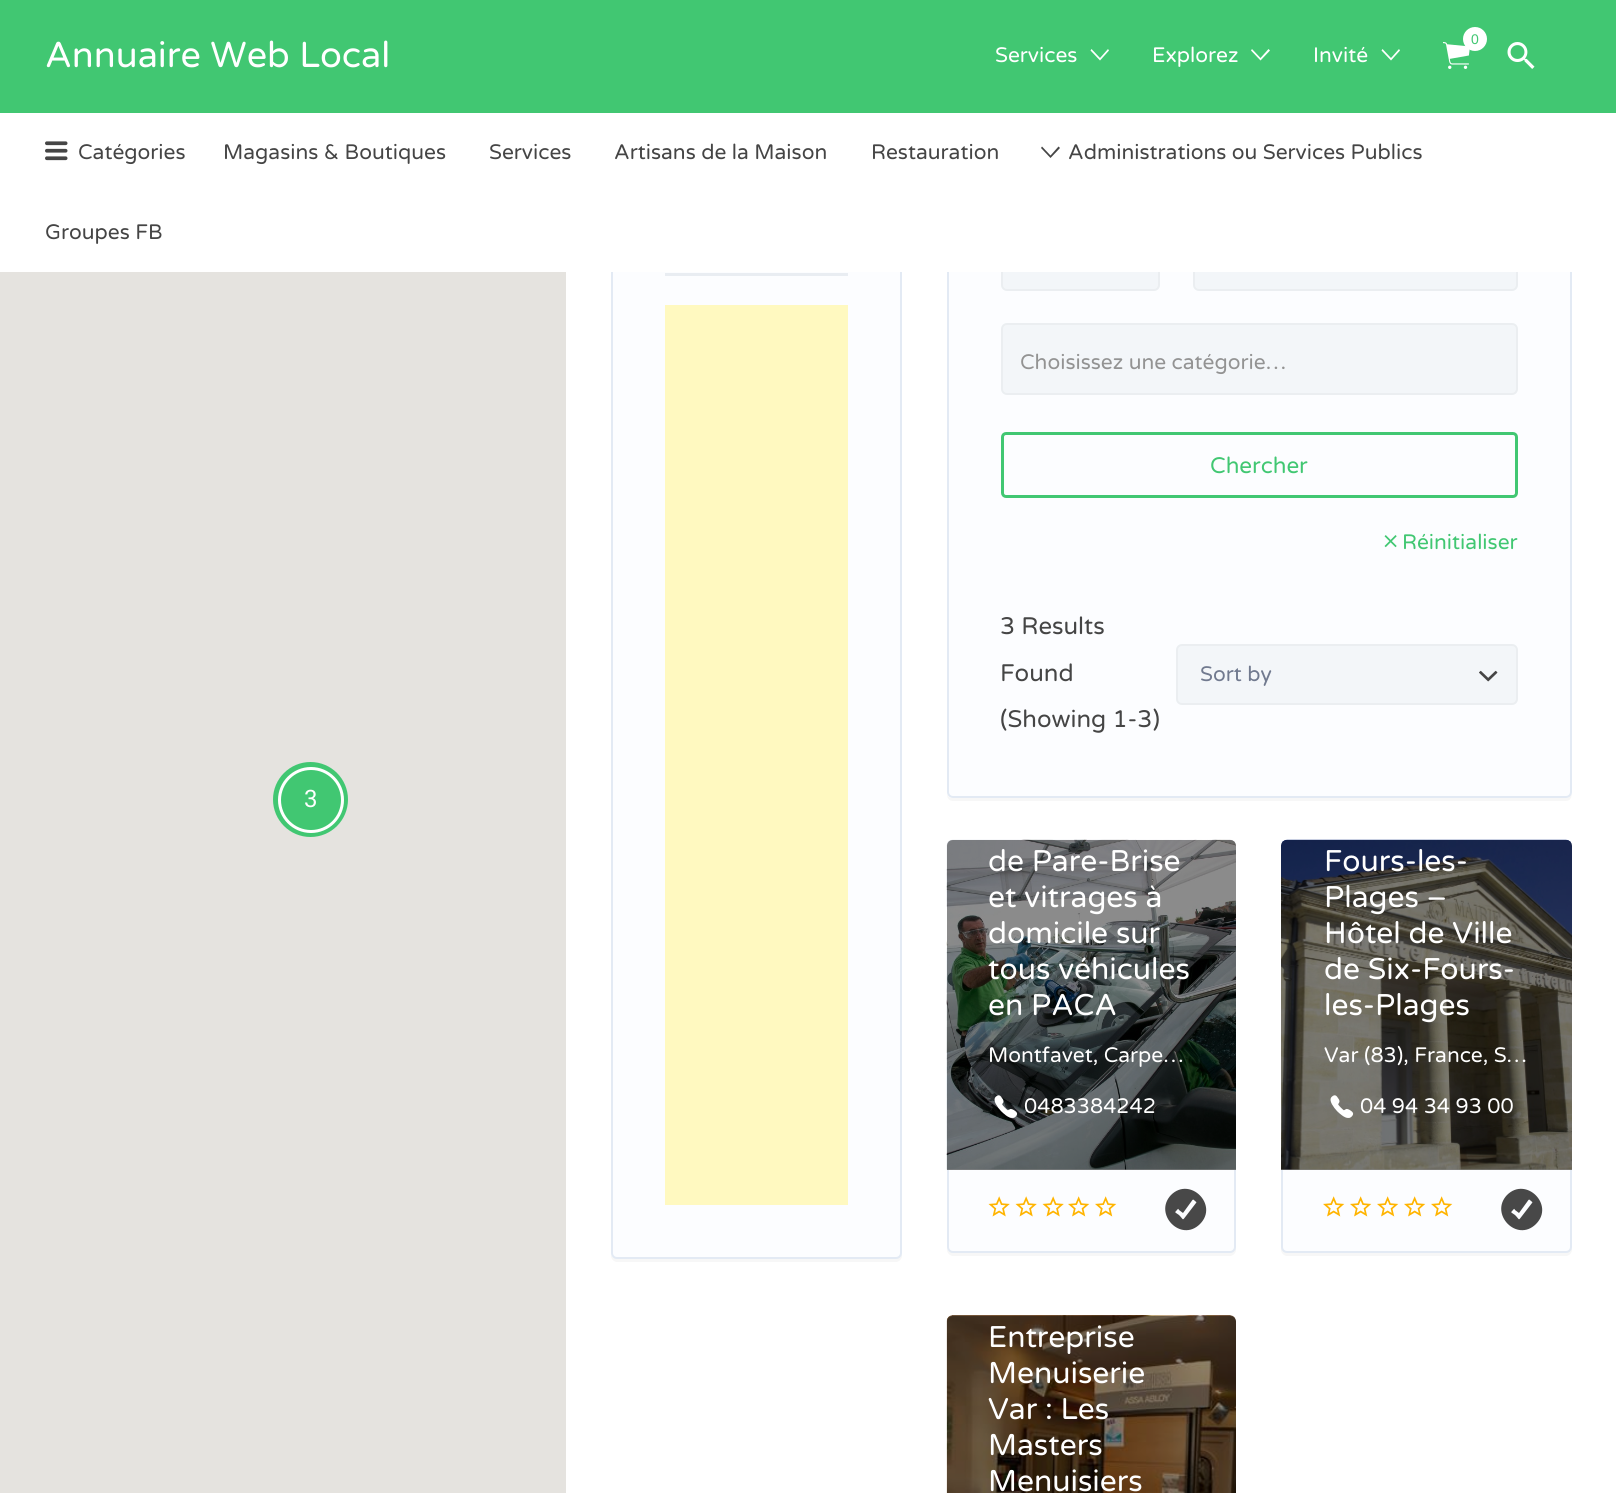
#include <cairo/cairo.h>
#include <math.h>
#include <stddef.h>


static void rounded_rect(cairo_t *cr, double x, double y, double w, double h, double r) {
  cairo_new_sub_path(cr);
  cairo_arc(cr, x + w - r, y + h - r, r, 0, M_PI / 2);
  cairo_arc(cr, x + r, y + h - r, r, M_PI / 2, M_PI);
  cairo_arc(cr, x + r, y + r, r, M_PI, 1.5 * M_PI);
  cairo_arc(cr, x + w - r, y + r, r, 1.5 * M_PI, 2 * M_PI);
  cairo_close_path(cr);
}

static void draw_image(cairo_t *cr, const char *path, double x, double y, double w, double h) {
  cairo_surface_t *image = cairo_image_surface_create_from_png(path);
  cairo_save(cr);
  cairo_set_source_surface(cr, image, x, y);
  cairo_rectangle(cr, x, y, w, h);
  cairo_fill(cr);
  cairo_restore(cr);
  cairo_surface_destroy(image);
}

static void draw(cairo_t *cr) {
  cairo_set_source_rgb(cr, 1, 1, 1);
  cairo_paint(cr);
  cairo_set_source_rgb(cr, 65 / 255.0, 199 / 255.0, 114 / 255.0);
  cairo_rectangle(cr, 0, 0, 1616, 113);
  cairo_fill(cr);
  draw_image(cr, "images/1.png", 1443, 42, 27, 27);
  cairo_set_source_rgb(cr, 1, 1, 1);
  cairo_arc(cr, 1475, 39, 12, 0, 2 * M_PI);
  cairo_fill(cr);
  cairo_new_path(cr);
  cairo_move_to(cr, 1108, 49);
  cairo_line_to(cr, 1109, 50.5);
  cairo_line_to(cr, 1100, 60.5);
  cairo_line_to(cr, 1090.5, 50.5);
  cairo_line_to(cr, 1091.5, 49);
  cairo_line_to(cr, 1100, 58);
  cairo_close_path(cr);
  cairo_fill(cr);
  cairo_new_path(cr);
  cairo_move_to(cr, 1268.5, 49);
  cairo_line_to(cr, 1270, 50.5);
  cairo_line_to(cr, 1260.5, 60.5);
  cairo_line_to(cr, 1251, 50.5);
  cairo_line_to(cr, 1252, 49);
  cairo_line_to(cr, 1260.5, 58);
  cairo_close_path(cr);
  cairo_fill(cr);
  cairo_new_path(cr);
  cairo_move_to(cr, 1399, 49);
  cairo_line_to(cr, 1400, 50.5);
  cairo_line_to(cr, 1391, 60.5);
  cairo_line_to(cr, 1381.5, 50.5);
  cairo_line_to(cr, 1382.5, 49);
  cairo_line_to(cr, 1391, 58);
  cairo_close_path(cr);
  cairo_fill(cr);
  draw_image(cr, "images/2.png", 1507, 42, 28, 27);
  cairo_set_source_rgb(cr, 247 / 255.0, 247 / 255.0, 247 / 255.0);
  cairo_new_path(cr);
  cairo_move_to(cr, 611, 1255);
  cairo_line_to(cr, 611, 1256);
  cairo_curve_to(cr, 611, 1259, 614, 1262, 617, 1262);
  cairo_line_to(cr, 896, 1262);
  cairo_curve_to(cr, 899, 1262, 902, 1259, 902, 1256);
  cairo_line_to(cr, 902, 185);
  cairo_line_to(cr, 902, 183);
  cairo_line_to(cr, 902, 1252);
  cairo_curve_to(cr, 902, 1256, 899, 1258, 896, 1258);
  cairo_line_to(cr, 616, 1258);
  cairo_curve_to(cr, 614, 1258, 612, 1257, 611, 1255);
  cairo_close_path(cr);
  cairo_fill(cr);
  cairo_set_source_rgb(cr, 252 / 255.0, 253 / 255.0, 1);
  rounded_rect(cr, 612, 177, 289, 1081, 5);
  cairo_fill_preserve(cr);
  cairo_set_source_rgb(cr, 227 / 255.0, 234 / 255.0, 244 / 255.0);
  cairo_stroke(cr);
  cairo_set_source_rgb(cr, 247 / 255.0, 247 / 255.0, 247 / 255.0);
  cairo_new_path(cr);
  cairo_move_to(cr, 947, 794);
  cairo_curve_to(cr, 947, 798, 949, 801, 953, 801);
  cairo_line_to(cr, 1566, 801);
  cairo_curve_to(cr, 1571, 801, 1572, 796, 1572, 792);
  cairo_curve_to(cr, 1572, 795, 1569, 798, 1566, 798);
  cairo_line_to(cr, 952, 798);
  cairo_curve_to(cr, 950, 798, 948, 797, 947, 794);
  cairo_close_path(cr);
  cairo_fill(cr);
  cairo_set_source_rgb(cr, 252 / 255.0, 253 / 255.0, 1);
  rounded_rect(cr, 948, 177, 623, 620, 5);
  cairo_fill_preserve(cr);
  cairo_set_source_rgb(cr, 227 / 255.0, 234 / 255.0, 244 / 255.0);
  cairo_stroke(cr);
  cairo_set_source_rgb(cr, 243 / 255.0, 246 / 255.0, 249 / 255.0);
  rounded_rect(cr, 1002, 231, 157, 59, 5);
  cairo_fill_preserve(cr);
  cairo_set_source_rgb(cr, 235 / 255.0, 238 / 255.0, 241 / 255.0);
  cairo_stroke(cr);
  cairo_set_source_rgb(cr, 243 / 255.0, 246 / 255.0, 249 / 255.0);
  rounded_rect(cr, 1194, 231, 323, 59, 5);
  cairo_fill_preserve(cr);
  cairo_set_source_rgb(cr, 235 / 255.0, 238 / 255.0, 241 / 255.0);
  cairo_stroke(cr);
  cairo_set_source_rgb(cr, 1, 1, 1);
  cairo_rectangle(cr, 611, 176, 961, 96);
  cairo_fill(cr);
  draw_image(cr, "images/3.png", 45, 141, 23, 20);
  cairo_set_source_rgb(cr, 69 / 255.0, 69 / 255.0, 69 / 255.0);
  cairo_new_path(cr);
  cairo_move_to(cr, 1058.5, 146.5);
  cairo_line_to(cr, 1060, 148);
  cairo_line_to(cr, 1050.5, 158);
  cairo_line_to(cr, 1041, 148);
  cairo_line_to(cr, 1042, 146.5);
  cairo_line_to(cr, 1050.5, 155.5);
  cairo_close_path(cr);
  cairo_fill(cr);
  cairo_set_source_rgb(cr, 229 / 255.0, 227 / 255.0, 223 / 255.0);
  cairo_rectangle(cr, 0, 272, 566, 1221);
  cairo_fill(cr);
  cairo_set_source_rgb(cr, 65 / 255.0, 199 / 255.0, 114 / 255.0);
  cairo_arc(cr, 310.5, 799.5, 37.5, 0, 2 * M_PI);
  cairo_fill(cr);
  cairo_arc(cr, 311, 800, 31.5, 0, 2 * M_PI);
  cairo_set_source_rgb(cr, 1, 1, 1);
  cairo_set_line_width(cr, 3);
  cairo_stroke(cr);
  cairo_set_source_rgb(cr, 233 / 255.0, 237 / 255.0, 242 / 255.0);
  cairo_rectangle(cr, 665, 273, 183, 3);
  cairo_fill(cr);
  cairo_set_source_rgb(cr, 1, 249 / 255.0, 192 / 255.0);
  cairo_rectangle(cr, 665, 305, 183, 900);
  cairo_fill(cr);
  cairo_set_source_rgb(cr, 243 / 255.0, 246 / 255.0, 249 / 255.0);
  rounded_rect(cr, 1002, 324, 515, 70, 5);
  cairo_fill_preserve(cr);
  cairo_set_source_rgb(cr, 235 / 255.0, 238 / 255.0, 241 / 255.0);
  cairo_set_line_width(cr, 2);
  cairo_stroke(cr);
  rounded_rect(cr, 1002.5, 433.5, 514, 63, 3.5);
  cairo_set_source_rgb(cr, 65 / 255.0, 199 / 255.0, 114 / 255.0);
  cairo_set_line_width(cr, 3);
  cairo_stroke(cr);
  draw_image(cr, "images/4.png", 1384, 535, 13, 13);
  cairo_set_source_rgb(cr, 243 / 255.0, 246 / 255.0, 249 / 255.0);
  rounded_rect(cr, 1177, 645, 340, 59, 5);
  cairo_fill_preserve(cr);
  cairo_set_source_rgb(cr, 235 / 255.0, 238 / 255.0, 241 / 255.0);
  cairo_set_line_width(cr, 2);
  cairo_stroke(cr);
  draw_image(cr, "images/5.png", 1479, 670, 19, 12);
  cairo_set_source_rgb(cr, 247 / 255.0, 247 / 255.0, 247 / 255.0);
  cairo_new_path(cr);
  cairo_move_to(cr, 947, 1249);
  cairo_line_to(cr, 947, 1250);
  cairo_curve_to(cr, 947, 1253, 950, 1256, 953, 1256);
  cairo_line_to(cr, 1230, 1256);
  cairo_curve_to(cr, 1233, 1256, 1236, 1253, 1236, 1250);
  cairo_line_to(cr, 1236, 1246);
  cairo_curve_to(cr, 1236, 1250, 1233, 1252, 1230, 1252);
  cairo_line_to(cr, 952, 1252);
  cairo_curve_to(cr, 950, 1252, 948, 1251, 947, 1249);
  cairo_close_path(cr);
  cairo_fill(cr);
  cairo_set_source_rgb(cr, 252 / 255.0, 253 / 255.0, 1);
  rounded_rect(cr, 948, 841, 287, 411, 5);
  cairo_fill_preserve(cr);
  cairo_set_source_rgb(cr, 227 / 255.0, 234 / 255.0, 244 / 255.0);
  cairo_stroke(cr);
  cairo_set_source_rgb(cr, 245 / 255.0, 245 / 255.0, 245 / 255.0);
  cairo_new_path(cr);
  cairo_move_to(cr, 953, 840);
  cairo_line_to(cr, 1230, 840);
  cairo_curve_to(cr, 1233.5, 840, 1236, 842.5, 1236, 846);
  cairo_line_to(cr, 1236, 1170);
  cairo_line_to(cr, 947, 1170);
  cairo_line_to(cr, 947, 846);
  cairo_curve_to(cr, 947, 842.5, 949.5, 840, 953, 840);
  cairo_close_path(cr);
  cairo_fill(cr);
  draw_image(cr, "images/6.png", 946, 839, 290, 331);
  cairo_set_source_rgba(cr, 0, 0, 0, 0.45);
  cairo_new_path(cr);
  cairo_move_to(cr, 953, 840);
  cairo_line_to(cr, 1230, 840);
  cairo_curve_to(cr, 1233.5, 840, 1236, 842.5, 1236, 846);
  cairo_line_to(cr, 1236, 1170);
  cairo_line_to(cr, 947, 1170);
  cairo_line_to(cr, 947, 846);
  cairo_curve_to(cr, 947, 842.5, 949.5, 840, 953, 840);
  cairo_close_path(cr);
  cairo_fill(cr);
  draw_image(cr, "images/7.png", 994, 1095, 24, 23);
  draw_image(cr, "images/8.png", 988, 1196, 22, 21);
  draw_image(cr, "images/8.png", 1015, 1196, 22, 21);
  draw_image(cr, "images/8.png", 1042, 1196, 22, 21);
  draw_image(cr, "images/9.png", 1068, 1196, 22, 21);
  draw_image(cr, "images/9.png", 1095, 1196, 22, 21);
  cairo_set_source_rgb(cr, 72 / 255.0, 72 / 255.0, 72 / 255.0);
  cairo_new_path(cr);
  cairo_move_to(cr, 1171, 1195);
  cairo_curve_to(cr, 1190, 1176, 1219, 1205, 1200, 1224);
  cairo_curve_to(cr, 1181, 1243, 1153, 1214, 1171, 1195);
  cairo_close_path(cr);
  cairo_move_to(cr, 1196, 1203);
  cairo_curve_to(cr, 1197, 1202, 1196, 1202, 1195, 1201);
  cairo_curve_to(cr, 1193, 1199, 1193, 1199, 1191, 1202);
  cairo_line_to(cr, 1183, 1213);
  cairo_line_to(cr, 1179, 1210);
  cairo_curve_to(cr, 1178, 1208, 1178, 1209, 1177, 1210);
  cairo_curve_to(cr, 1174, 1213, 1175, 1212, 1179, 1215);
  cairo_curve_to(cr, 1184, 1220, 1182, 1221, 1186, 1216);
  cairo_close_path(cr);
  cairo_fill(cr);
  cairo_set_source_rgb(cr, 247 / 255.0, 247 / 255.0, 247 / 255.0);
  cairo_new_path(cr);
  cairo_move_to(cr, 1281, 1246);
  cairo_line_to(cr, 1281, 1250);
  cairo_curve_to(cr, 1281, 1253, 1284, 1256, 1287, 1256);
  cairo_line_to(cr, 1566, 1256);
  cairo_curve_to(cr, 1569, 1256, 1572, 1253, 1572, 1250);
  cairo_line_to(cr, 1572, 1246);
  cairo_curve_to(cr, 1572, 1250, 1569, 1252, 1566, 1252);
  cairo_line_to(cr, 1287, 1252);
  cairo_curve_to(cr, 1284, 1252, 1281, 1250, 1281, 1246);
  cairo_close_path(cr);
  cairo_fill(cr);
  cairo_set_source_rgb(cr, 252 / 255.0, 253 / 255.0, 1);
  rounded_rect(cr, 1282, 841, 289, 411, 5);
  cairo_fill_preserve(cr);
  cairo_set_source_rgb(cr, 227 / 255.0, 234 / 255.0, 244 / 255.0);
  cairo_stroke(cr);
  cairo_set_source_rgb(cr, 245 / 255.0, 245 / 255.0, 245 / 255.0);
  cairo_new_path(cr);
  cairo_move_to(cr, 1287, 840);
  cairo_line_to(cr, 1566, 840);
  cairo_curve_to(cr, 1569.5, 840, 1572, 842.5, 1572, 846);
  cairo_line_to(cr, 1572, 1170);
  cairo_line_to(cr, 1281, 1170);
  cairo_line_to(cr, 1281, 846);
  cairo_curve_to(cr, 1281, 842.5, 1283.5, 840, 1287, 840);
  cairo_close_path(cr);
  cairo_fill(cr);
  draw_image(cr, "images/10.png", 1281, 839, 291, 331);
  cairo_set_source_rgba(cr, 0, 0, 0, 0.45);
  cairo_new_path(cr);
  cairo_move_to(cr, 1287, 840);
  cairo_line_to(cr, 1566, 840);
  cairo_curve_to(cr, 1569.5, 840, 1572, 842.5, 1572, 846);
  cairo_line_to(cr, 1572, 1170);
  cairo_line_to(cr, 1281, 1170);
  cairo_line_to(cr, 1281, 846);
  cairo_curve_to(cr, 1281, 842.5, 1283.5, 840, 1287, 840);
  cairo_close_path(cr);
  cairo_fill(cr);
  draw_image(cr, "images/11.png", 1330, 1095, 24, 23);
  draw_image(cr, "images/9.png", 1323, 1196, 22, 21);
  draw_image(cr, "images/9.png", 1350, 1196, 22, 21);
  draw_image(cr, "images/9.png", 1377, 1196, 22, 21);
  draw_image(cr, "images/9.png", 1404, 1196, 22, 21);
  draw_image(cr, "images/9.png", 1431, 1196, 22, 21);
  cairo_set_source_rgb(cr, 72 / 255.0, 72 / 255.0, 72 / 255.0);
  cairo_new_path(cr);
  cairo_move_to(cr, 1507, 1195);
  cairo_curve_to(cr, 1526, 1176, 1555, 1205, 1536, 1224);
  cairo_curve_to(cr, 1517, 1243, 1489, 1214, 1507, 1195);
  cairo_close_path(cr);
  cairo_move_to(cr, 1532, 1203);
  cairo_curve_to(cr, 1533, 1202, 1532, 1202, 1531, 1201);
  cairo_curve_to(cr, 1529, 1199, 1529, 1199, 1527, 1202);
  cairo_line_to(cr, 1519, 1213);
  cairo_line_to(cr, 1515, 1210);
  cairo_curve_to(cr, 1514, 1208, 1514, 1209, 1513, 1210);
  cairo_curve_to(cr, 1510, 1213, 1511, 1212, 1515, 1215);
  cairo_curve_to(cr, 1520, 1220, 1518, 1221, 1522, 1216);
  cairo_close_path(cr);
  cairo_fill(cr);
  rounded_rect(cr, 948, 1317, 287, 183, 5);
  cairo_set_source_rgb(cr, 227 / 255.0, 234 / 255.0, 244 / 255.0);
  cairo_stroke(cr);
  draw_image(cr, "images/12.png", 946, 1315, 290, 178);
  cairo_set_source_rgba(cr, 0, 0, 0, 0.45);
  cairo_new_path(cr);
  cairo_move_to(cr, 953, 1316);
  cairo_line_to(cr, 1230, 1316);
  cairo_curve_to(cr, 1233.5, 1316, 1236, 1318.5, 1236, 1322);
  cairo_line_to(cr, 1236, 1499);
  cairo_line_to(cr, 947, 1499);
  cairo_line_to(cr, 947, 1322);
  cairo_curve_to(cr, 947, 1318.5, 949.5, 1316, 953, 1316);
  cairo_close_path(cr);
  cairo_fill(cr);
  cairo_select_font_face(cr, "Varela Round", CAIRO_FONT_SLANT_NORMAL, CAIRO_FONT_WEIGHT_NORMAL);
  cairo_set_font_size(cr, 36);
  cairo_set_source_rgb(cr, 1, 1, 1);
  cairo_move_to(cr, 45, 67);
  cairo_show_text(cr, "Annuaire Web Local");
  cairo_select_font_face(cr, "Liberation Sans", CAIRO_FONT_SLANT_NORMAL, CAIRO_FONT_WEIGHT_NORMAL);
  cairo_set_font_size(cr, 14);
  cairo_set_source_rgb(cr, 65 / 255.0, 199 / 255.0, 114 / 255.0);
  cairo_move_to(cr, 1471, 44);
  cairo_show_text(cr, "0");
  cairo_select_font_face(cr, "Varela Round", CAIRO_FONT_SLANT_NORMAL, CAIRO_FONT_WEIGHT_NORMAL);
  cairo_set_font_size(cr, 21);
  cairo_set_source_rgb(cr, 1, 1, 1);
  cairo_move_to(cr, 995, 62);
  cairo_show_text(cr, "Services");
  cairo_move_to(cr, 1152, 62);
  cairo_show_text(cr, "Explorez");
  cairo_move_to(cr, 1313, 62);
  cairo_show_text(cr, "Invité");
  cairo_set_source_rgb(cr, 69 / 255.0, 69 / 255.0, 69 / 255.0);
  cairo_move_to(cr, 78, 159);
  cairo_show_text(cr, "Catégories");
  cairo_move_to(cr, 223, 159);
  cairo_show_text(cr, "Magasins & Boutiques");
  cairo_move_to(cr, 489, 159);
  cairo_show_text(cr, "Services");
  cairo_move_to(cr, 614, 159);
  cairo_show_text(cr, "Artisans de la Maison");
  cairo_move_to(cr, 871, 159);
  cairo_show_text(cr, "Restauration");
  cairo_move_to(cr, 1068, 159);
  cairo_show_text(cr, "Administrations ou Services Publics");
  cairo_move_to(cr, 45, 239);
  cairo_show_text(cr, "Groupes FB");
  cairo_select_font_face(cr, "Roboto", CAIRO_FONT_SLANT_NORMAL, CAIRO_FONT_WEIGHT_NORMAL);
  cairo_set_font_size(cr, 24);
  cairo_set_source_rgb(cr, 1, 1, 1);
  cairo_move_to(cr, 304, 807);
  cairo_show_text(cr, "3");
  cairo_select_font_face(cr, "Varela Round", CAIRO_FONT_SLANT_NORMAL, CAIRO_FONT_WEIGHT_NORMAL);
  cairo_set_font_size(cr, 21);
  cairo_set_source_rgb(cr, 147 / 255.0, 147 / 255.0, 147 / 255.0);
  cairo_move_to(cr, 1020, 369);
  cairo_show_text(cr, "Choisissez une catégorie…");
  cairo_set_font_size(cr, 22.5);
  cairo_set_source_rgb(cr, 65 / 255.0, 199 / 255.0, 114 / 255.0);
  cairo_move_to(cr, 1210, 473);
  cairo_show_text(cr, "Chercher");
  cairo_set_font_size(cr, 21);
  cairo_move_to(cr, 1402, 549);
  cairo_show_text(cr, "Réinitialiser");
  cairo_set_font_size(cr, 24);
  cairo_set_source_rgb(cr, 69 / 255.0, 69 / 255.0, 69 / 255.0);
  cairo_move_to(cr, 1000, 634);
  cairo_show_text(cr, "3 Results");
  cairo_move_to(cr, 1000, 681);
  cairo_show_text(cr, "Found");
  cairo_move_to(cr, 1000, 727);
  cairo_show_text(cr, "(Showing 1-3)");
  cairo_set_font_size(cr, 21);
  cairo_set_source_rgb(cr, 113 / 255.0, 122 / 255.0, 143 / 255.0);
  cairo_move_to(cr, 1200, 681);
  cairo_show_text(cr, "Sort by");
  cairo_set_font_size(cr, 30);
  cairo_set_source_rgb(cr, 1, 1, 1);
  cairo_move_to(cr, 988, 871);
  cairo_show_text(cr, "de Pare-Brise");
  cairo_move_to(cr, 988, 907);
  cairo_show_text(cr, "et vitrages à");
  cairo_move_to(cr, 988, 943);
  cairo_show_text(cr, "domicile sur");
  cairo_move_to(cr, 988, 979);
  cairo_show_text(cr, "tous véhicules");
  cairo_move_to(cr, 988, 1015);
  cairo_show_text(cr, "en PACA");
  cairo_set_font_size(cr, 21);
  cairo_move_to(cr, 988, 1062);
  cairo_show_text(cr, "Montfavet, Carpe…");
  cairo_move_to(cr, 1024, 1113);
  cairo_show_text(cr, "0483384242");
  cairo_set_font_size(cr, 30);
  cairo_move_to(cr, 1324, 871);
  cairo_show_text(cr, "Fours-les-");
  cairo_move_to(cr, 1324, 907);
  cairo_show_text(cr, "Plages –");
  cairo_move_to(cr, 1324, 943);
  cairo_show_text(cr, "Hôtel de Ville");
  cairo_move_to(cr, 1324, 979);
  cairo_show_text(cr, "de Six-Fours-");
  cairo_move_to(cr, 1324, 1015);
  cairo_show_text(cr, "les-Plages");
  cairo_set_font_size(cr, 21);
  cairo_move_to(cr, 1324, 1062);
  cairo_show_text(cr, "Var (83), France, S…");
  cairo_move_to(cr, 1360, 1113);
  cairo_show_text(cr, "04 94 34 93 00");
  cairo_set_font_size(cr, 30);
  cairo_move_to(cr, 988, 1347);
  cairo_show_text(cr, "Entreprise");
  cairo_move_to(cr, 988, 1383);
  cairo_show_text(cr, "Menuiserie");
  cairo_move_to(cr, 988, 1419);
  cairo_show_text(cr, "Var : Les");
  cairo_move_to(cr, 988, 1455);
  cairo_show_text(cr, "Masters");
  cairo_move_to(cr, 988, 1491);
  cairo_show_text(cr, "Menuisiers");
}

int main(void) {
  cairo_surface_t *surface = cairo_image_surface_create(CAIRO_FORMAT_RGB24, 1616, 1493);
  cairo_t *cr = cairo_create(surface);
  cairo_font_options_t *options = cairo_font_options_create();
  cairo_font_options_set_hint_metrics(options, CAIRO_HINT_METRICS_OFF);
  cairo_font_options_set_hint_style(options, CAIRO_HINT_STYLE_NONE);
  cairo_set_font_options(cr, options);
  cairo_set_miter_limit(cr, 4);
  draw(cr);
  cairo_surface_write_to_png(surface, "out.png");
  cairo_font_options_destroy(options);
  cairo_destroy(cr);
  cairo_surface_destroy(surface);
  return 0;
}
